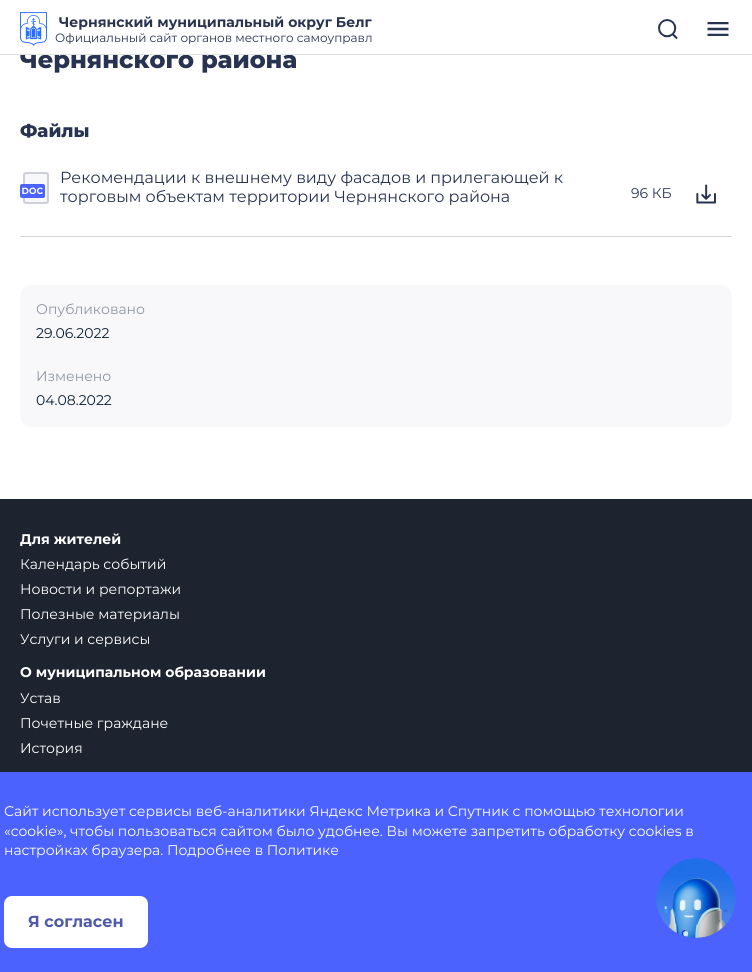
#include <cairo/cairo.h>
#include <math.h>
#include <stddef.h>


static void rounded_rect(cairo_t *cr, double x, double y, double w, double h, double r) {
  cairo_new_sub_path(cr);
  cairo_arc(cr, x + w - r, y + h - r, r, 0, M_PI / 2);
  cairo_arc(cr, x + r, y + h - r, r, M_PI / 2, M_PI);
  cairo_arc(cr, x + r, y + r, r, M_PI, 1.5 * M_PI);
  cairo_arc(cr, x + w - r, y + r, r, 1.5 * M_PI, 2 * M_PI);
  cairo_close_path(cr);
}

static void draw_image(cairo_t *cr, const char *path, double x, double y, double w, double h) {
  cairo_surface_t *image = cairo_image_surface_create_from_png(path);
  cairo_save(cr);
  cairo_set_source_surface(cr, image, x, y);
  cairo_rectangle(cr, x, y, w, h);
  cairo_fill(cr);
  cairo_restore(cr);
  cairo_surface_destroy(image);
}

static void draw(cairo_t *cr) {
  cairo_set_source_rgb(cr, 1, 1, 1);
  cairo_paint(cr);
  draw_image(cr, "images/1.png", 20, 12, 27, 34);
  draw_image(cr, "images/2.png", 658, 19, 20, 21);
  draw_image(cr, "images/3.png", 707, 22, 22, 14);
  cairo_set_source_rgb(cr, 212 / 255.0, 214 / 255.0, 220 / 255.0);
  cairo_rectangle(cr, 20, 236, 712, 1);
  cairo_fill(cr);
  draw_image(cr, "images/4.png", 20, 172, 29, 32);
  draw_image(cr, "images/5.png", 696, 184, 20, 20);
  cairo_set_source_rgb(cr, 248 / 255.0, 248 / 255.0, 250 / 255.0);
  rounded_rect(cr, 20, 285, 712, 142, 12);
  cairo_fill(cr);
  cairo_set_source_rgb(cr, 29 / 255.0, 35 / 255.0, 47 / 255.0);
  cairo_rectangle(cr, 0, 499, 752, 273);
  cairo_fill(cr);
  cairo_set_source_rgb(cr, 75 / 255.0, 98 / 255.0, 1);
  cairo_rectangle(cr, 0, 772, 752, 200);
  cairo_fill(cr);
  cairo_set_source_rgb(cr, 1, 1, 1);
  rounded_rect(cr, 4, 896, 144, 52, 8);
  cairo_fill(cr);
  draw_image(cr, "images/6.png", 656, 858, 80, 80);
  cairo_select_font_face(cr, "Montserrat", CAIRO_FONT_SLANT_NORMAL, CAIRO_FONT_WEIGHT_BOLD);
  cairo_set_font_size(cr, 14);
  cairo_set_source_rgb(cr, 39 / 255.0, 51 / 255.0, 80 / 255.0);
  cairo_move_to(cr, 59, 27);
  cairo_show_text(cr, "Чернянский муниципальный округ Белг");
  cairo_save(cr);
  cairo_rectangle(cr, 55, 32, 320, 12);
  cairo_clip(cr);
  cairo_select_font_face(cr, "Montserrat", CAIRO_FONT_SLANT_NORMAL, CAIRO_FONT_WEIGHT_NORMAL);
  cairo_set_font_size(cr, 12);
  cairo_move_to(cr, 55, 42);
  cairo_show_text(cr, "Официальный сайт органов местного самоуправл");
  cairo_restore(cr);
  cairo_select_font_face(cr, "Montserrat ExtraBold", CAIRO_FONT_SLANT_NORMAL, CAIRO_FONT_WEIGHT_NORMAL);
  cairo_set_font_size(cr, 24);
  cairo_move_to(cr, 20, 68);
  cairo_show_text(cr, "Чернянского района");
  cairo_set_source_rgb(cr, 227 / 255.0, 227 / 255.0, 227 / 255.0);
  cairo_rectangle(cr, 0, 54, 752, 1);
  cairo_fill(cr);
  cairo_set_source_rgb(cr, 1, 1, 1);
  cairo_rectangle(cr, 20, 49, 226, 5);
  cairo_fill(cr);
  cairo_set_font_size(cr, 18);
  cairo_set_source_rgb(cr, 39 / 255.0, 51 / 255.0, 80 / 255.0);
  cairo_move_to(cr, 20, 137);
  cairo_show_text(cr, "Файлы");
  cairo_select_font_face(cr, "Montserrat", CAIRO_FONT_SLANT_NORMAL, CAIRO_FONT_WEIGHT_NORMAL);
  cairo_set_font_size(cr, 16);
  cairo_move_to(cr, 60, 183);
  cairo_show_text(cr, "Рекомендации к внешнему виду фасадов и прилегающей к");
  cairo_move_to(cr, 60, 202);
  cairo_show_text(cr, "торговым объектам территории Чернянского района");
  cairo_set_font_size(cr, 14);
  cairo_move_to(cr, 631, 198);
  cairo_show_text(cr, "96 КБ");
  cairo_set_source_rgb(cr, 144 / 255.0, 150 / 255.0, 165 / 255.0);
  cairo_move_to(cr, 36, 314);
  cairo_show_text(cr, "Опубликовано");
  cairo_set_source_rgb(cr, 11 / 255.0, 31 / 255.0, 51 / 255.0);
  cairo_move_to(cr, 36, 338);
  cairo_show_text(cr, "29.06.2022");
  cairo_set_source_rgb(cr, 144 / 255.0, 150 / 255.0, 165 / 255.0);
  cairo_move_to(cr, 36, 381);
  cairo_show_text(cr, "Изменено");
  cairo_set_source_rgb(cr, 11 / 255.0, 31 / 255.0, 51 / 255.0);
  cairo_move_to(cr, 36, 405);
  cairo_show_text(cr, "04.08.2022");
  cairo_select_font_face(cr, "Montserrat", CAIRO_FONT_SLANT_NORMAL, CAIRO_FONT_WEIGHT_BOLD);
  cairo_set_source_rgb(cr, 1, 1, 1);
  cairo_move_to(cr, 20, 544);
  cairo_show_text(cr, "Для жителей");
  cairo_select_font_face(cr, "Montserrat", CAIRO_FONT_SLANT_NORMAL, CAIRO_FONT_WEIGHT_NORMAL);
  cairo_move_to(cr, 20, 569);
  cairo_show_text(cr, "Календарь событий");
  cairo_move_to(cr, 20, 594);
  cairo_show_text(cr, "Новости и репортажи");
  cairo_move_to(cr, 20, 619);
  cairo_show_text(cr, "Полезные материалы");
  cairo_move_to(cr, 20, 644);
  cairo_show_text(cr, "Услуги и сервисы");
  cairo_select_font_face(cr, "Montserrat", CAIRO_FONT_SLANT_NORMAL, CAIRO_FONT_WEIGHT_BOLD);
  cairo_move_to(cr, 20, 677);
  cairo_show_text(cr, "О муниципальном образовании");
  cairo_select_font_face(cr, "Montserrat", CAIRO_FONT_SLANT_NORMAL, CAIRO_FONT_WEIGHT_NORMAL);
  cairo_move_to(cr, 20, 703);
  cairo_show_text(cr, "Устав");
  cairo_move_to(cr, 20, 728);
  cairo_show_text(cr, "Почетные граждане");
  cairo_move_to(cr, 20, 753);
  cairo_show_text(cr, "История");
  cairo_move_to(cr, 4, 816);
  cairo_show_text(cr, "Сайт использует сервисы веб-аналитики Яндекс Метрика и Спутник с помощью технологии");
  cairo_move_to(cr, 4, 836);
  cairo_show_text(cr, "«cookie», чтобы пользоваться сайтом было удобнее. Вы можете запретить обработку cookies в");
  cairo_move_to(cr, 4, 855);
  cairo_show_text(cr, "настройках браузера. Подробнее в Политике");
  cairo_select_font_face(cr, "Montserrat", CAIRO_FONT_SLANT_NORMAL, CAIRO_FONT_WEIGHT_BOLD);
  cairo_set_font_size(cr, 16);
  cairo_set_source_rgb(cr, 79 / 255.0, 90 / 255.0, 168 / 255.0);
  cairo_move_to(cr, 28, 927);
  cairo_show_text(cr, "Я согласен");
}

int main(void) {
  cairo_surface_t *surface = cairo_image_surface_create(CAIRO_FORMAT_RGB24, 752, 972);
  cairo_t *cr = cairo_create(surface);
  cairo_font_options_t *options = cairo_font_options_create();
  cairo_font_options_set_hint_metrics(options, CAIRO_HINT_METRICS_OFF);
  cairo_font_options_set_hint_style(options, CAIRO_HINT_STYLE_NONE);
  cairo_set_font_options(cr, options);
  cairo_set_miter_limit(cr, 4);
  draw(cr);
  cairo_surface_write_to_png(surface, "out.png");
  cairo_font_options_destroy(options);
  cairo_destroy(cr);
  cairo_surface_destroy(surface);
  return 0;
}
